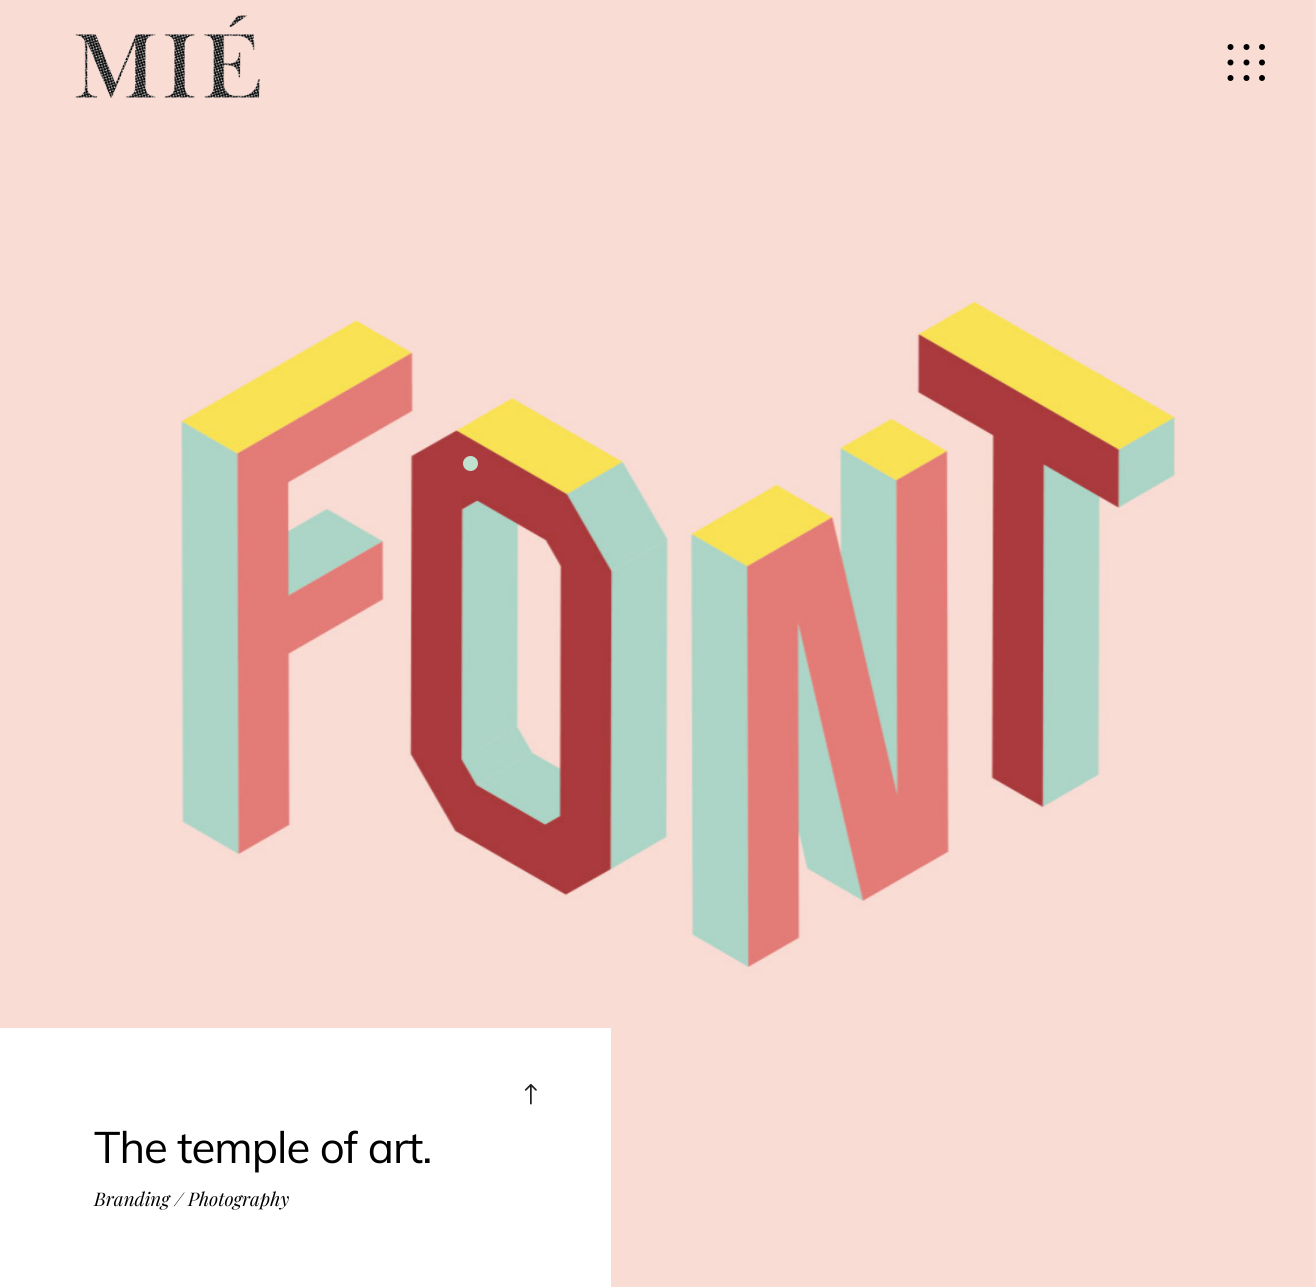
#include <cairo/cairo.h>
#include <math.h>
#include <stddef.h>


static void draw_spaced(cairo_t *cr, double x, double y, const char *s, double letter, double word) {
  cairo_move_to(cr, x, y);
  while (*s) {
    char ch[5] = {0};
    int n = 0;
    do ch[n++] = *s++; while ((*s & 0xC0) == 0x80);
    cairo_show_text(cr, ch);
    cairo_rel_move_to(cr, letter + word * (*ch == ' '), 0);
  }
}

static void draw_image(cairo_t *cr, const char *path, double x, double y, double w, double h) {
  cairo_surface_t *image = cairo_image_surface_create_from_png(path);
  cairo_save(cr);
  cairo_set_source_surface(cr, image, x, y);
  cairo_rectangle(cr, x, y, w, h);
  cairo_fill(cr);
  cairo_restore(cr);
  cairo_surface_destroy(image);
}

static void draw(cairo_t *cr) {
  cairo_set_source_rgb(cr, 1, 1, 1);
  cairo_paint(cr);
  draw_image(cr, "images/3.png", 0, 0, 1316, 1287);
  cairo_set_source_rgb(cr, 192 / 255.0, 225 / 255.0, 207 / 255.0);
  cairo_arc(cr, 470.5, 463.5, 7.5, 0, 2 * M_PI);
  cairo_fill(cr);
  draw_image(cr, "images/1.png", 75, 15, 185, 83);
  draw_image(cr, "images/2.png", 1227, 44, 38, 37);
  cairo_set_source_rgb(cr, 1, 1, 1);
  cairo_rectangle(cr, 0, 1028, 611, 259);
  cairo_fill(cr);
  draw_image(cr, "images/4.png", 524, 1084, 13, 21);
  cairo_select_font_face(cr, "Muli", CAIRO_FONT_SLANT_NORMAL, CAIRO_FONT_WEIGHT_NORMAL);
  cairo_set_font_size(cr, 43.75);
  cairo_set_source_rgb(cr, 0, 0, 0);
  draw_spaced(cr, 94, 1163, "The temple of art.", -1, 0);
  cairo_select_font_face(cr, "Playfair Display", CAIRO_FONT_SLANT_ITALIC, CAIRO_FONT_WEIGHT_NORMAL);
  cairo_set_font_size(cr, 18.75);
  cairo_move_to(cr, 94, 1206);
  cairo_show_text(cr, "Branding / Photography");
}

int main(void) {
  cairo_surface_t *surface = cairo_image_surface_create(CAIRO_FORMAT_RGB24, 1316, 1287);
  cairo_t *cr = cairo_create(surface);
  cairo_font_options_t *options = cairo_font_options_create();
  cairo_font_options_set_hint_metrics(options, CAIRO_HINT_METRICS_OFF);
  cairo_font_options_set_hint_style(options, CAIRO_HINT_STYLE_NONE);
  cairo_set_font_options(cr, options);
  cairo_set_miter_limit(cr, 4);
  draw(cr);
  cairo_surface_write_to_png(surface, "out.png");
  cairo_font_options_destroy(options);
  cairo_destroy(cr);
  cairo_surface_destroy(surface);
  return 0;
}
